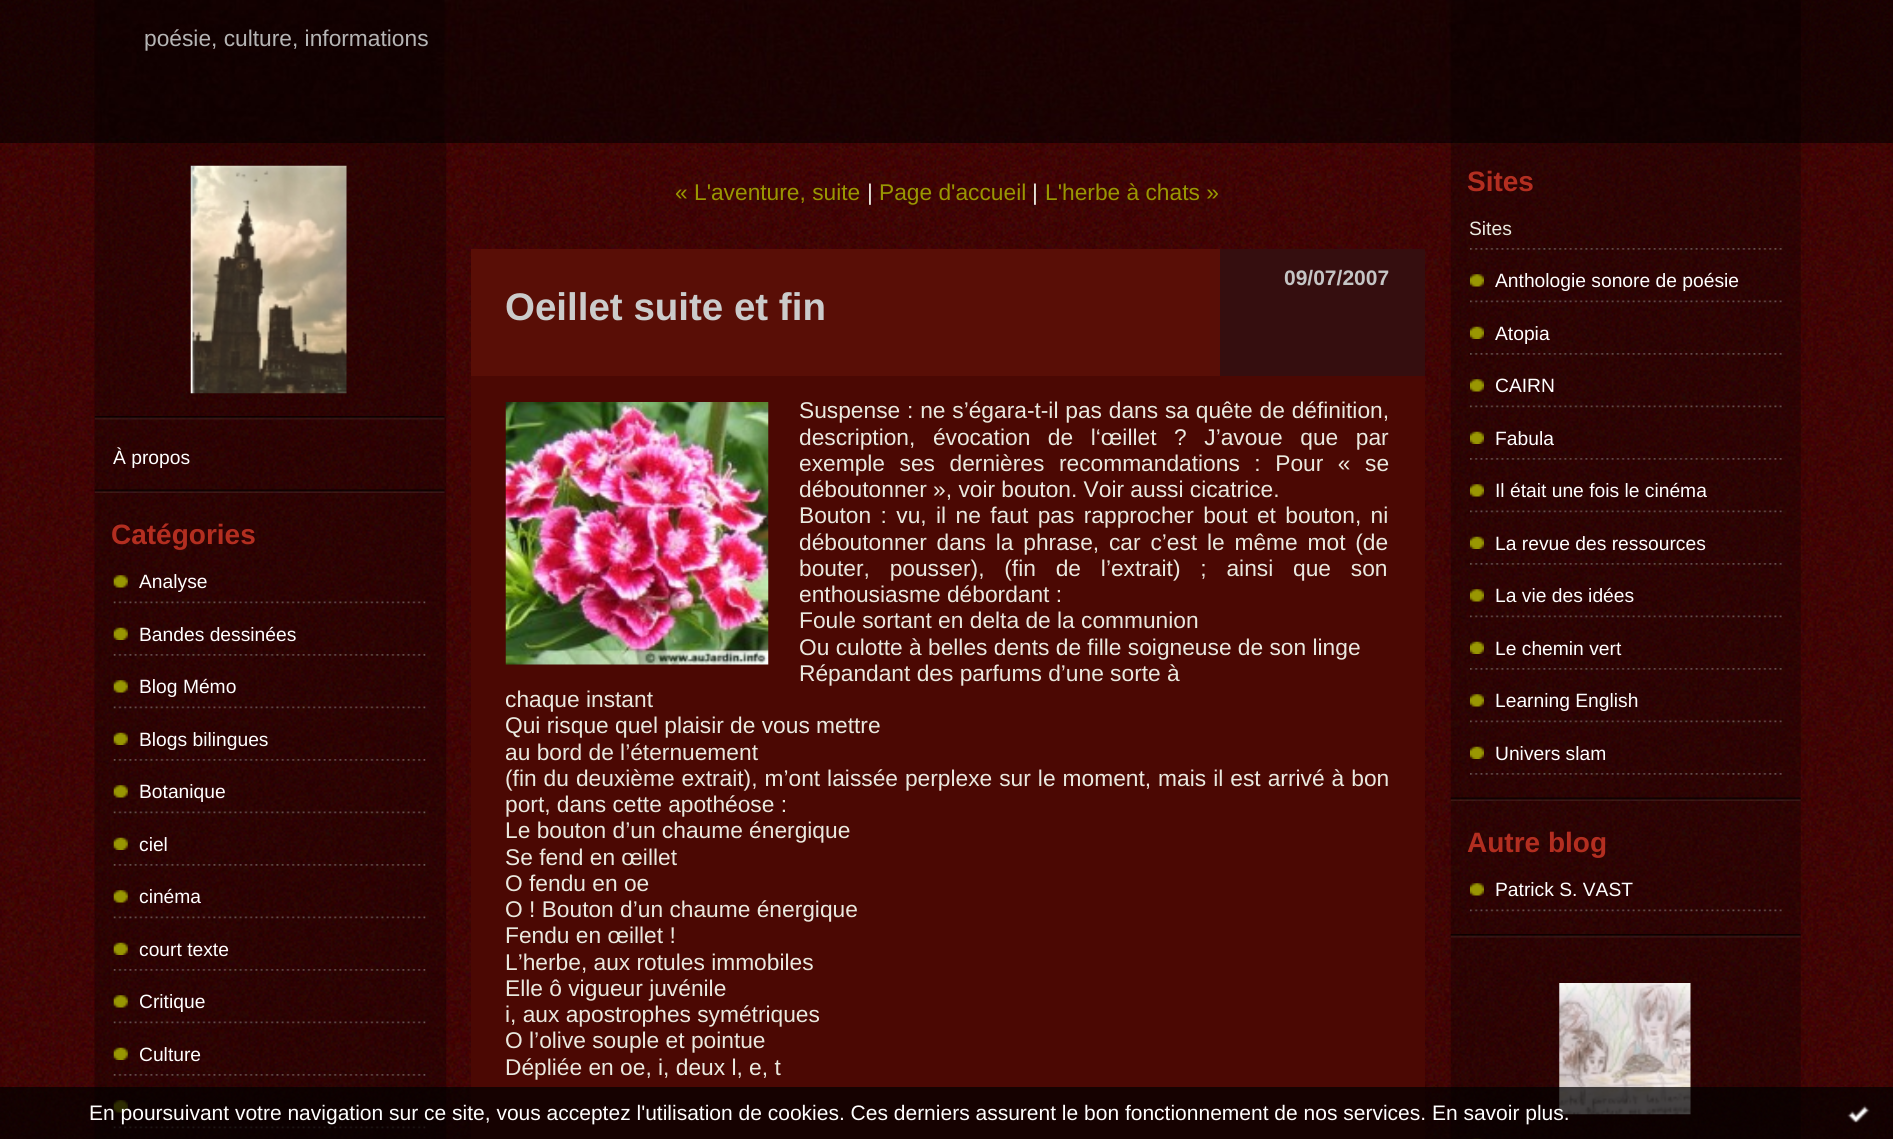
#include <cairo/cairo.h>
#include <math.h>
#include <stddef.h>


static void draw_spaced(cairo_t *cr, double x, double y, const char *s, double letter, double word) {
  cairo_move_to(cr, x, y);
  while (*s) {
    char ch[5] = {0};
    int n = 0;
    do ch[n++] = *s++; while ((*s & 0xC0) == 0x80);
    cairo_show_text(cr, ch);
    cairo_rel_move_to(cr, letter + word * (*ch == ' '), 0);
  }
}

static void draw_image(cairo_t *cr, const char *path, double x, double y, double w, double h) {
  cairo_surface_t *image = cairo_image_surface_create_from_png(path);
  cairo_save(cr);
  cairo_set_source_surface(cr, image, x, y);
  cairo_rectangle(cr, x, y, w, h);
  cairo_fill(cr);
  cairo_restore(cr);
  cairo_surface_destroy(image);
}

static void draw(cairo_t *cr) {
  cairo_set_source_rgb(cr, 1, 1, 1);
  cairo_paint(cr);
  draw_image(cr, "images/1.png", 0, 143, 1893, 996);
  draw_image(cr, "images/2.png", 0, 0, 1893, 143);
  draw_image(cr, "images/3.png", 94, 0, 1707, 143);
  draw_image(cr, "images/4.png", 94, 143, 353, 996);
  draw_image(cr, "images/5.png", 94, 416, 351, 4);
  draw_image(cr, "images/6.png", 190, 165, 157, 229);
  draw_image(cr, "images/7.png", 94, 489, 351, 4);
  draw_image(cr, "images/8.png", 113, 601, 313, 3);
  draw_image(cr, "images/9.png", 113, 575, 15, 13);
  draw_image(cr, "images/10.png", 113, 654, 313, 2);
  draw_image(cr, "images/11.png", 113, 627, 15, 13);
  draw_image(cr, "images/12.png", 113, 706, 313, 3);
  draw_image(cr, "images/13.png", 113, 680, 15, 13);
  draw_image(cr, "images/14.png", 113, 759, 313, 2);
  draw_image(cr, "images/15.png", 113, 732, 15, 13);
  draw_image(cr, "images/16.png", 113, 811, 313, 3);
  draw_image(cr, "images/17.png", 113, 785, 15, 13);
  draw_image(cr, "images/18.png", 113, 864, 313, 2);
  draw_image(cr, "images/19.png", 113, 837, 15, 13);
  draw_image(cr, "images/20.png", 113, 916, 313, 3);
  draw_image(cr, "images/21.png", 113, 890, 15, 13);
  draw_image(cr, "images/22.png", 113, 969, 313, 2);
  draw_image(cr, "images/23.png", 113, 942, 15, 13);
  draw_image(cr, "images/24.png", 113, 1021, 313, 3);
  draw_image(cr, "images/25.png", 113, 995, 15, 13);
  draw_image(cr, "images/26.png", 113, 1074, 313, 2);
  draw_image(cr, "images/27.png", 113, 1047, 15, 13);
  draw_image(cr, "images/28.png", 113, 1126, 313, 3);
  draw_image(cr, "images/29.png", 113, 1100, 15, 13);
  cairo_set_source_rgb(cr, 53 / 255.0, 14 / 255.0, 15 / 255.0);
  cairo_rectangle(cr, 1220, 249, 205, 127);
  cairo_fill(cr);
  cairo_set_source_rgb(cr, 89 / 255.0, 14 / 255.0, 6 / 255.0);
  cairo_rectangle(cr, 471, 249, 749, 127);
  cairo_fill(cr);
  cairo_set_source_rgb(cr, 75 / 255.0, 8 / 255.0, 3 / 255.0);
  cairo_rectangle(cr, 471, 376, 954, 763);
  cairo_fill(cr);
  draw_image(cr, "images/30.png", 505, 402, 264, 263);
  draw_image(cr, "images/31.png", 1450, 143, 351, 996);
  draw_image(cr, "images/32.png", 1450, 797, 351, 4);
  draw_image(cr, "images/33.png", 1470, 248, 312, 2);
  draw_image(cr, "images/34.png", 1470, 300, 312, 3);
  draw_image(cr, "images/35.png", 1470, 274, 14, 13);
  draw_image(cr, "images/36.png", 1470, 353, 312, 2);
  draw_image(cr, "images/37.png", 1470, 326, 14, 13);
  draw_image(cr, "images/38.png", 1470, 405, 312, 3);
  draw_image(cr, "images/39.png", 1470, 379, 14, 13);
  draw_image(cr, "images/40.png", 1470, 458, 312, 2);
  draw_image(cr, "images/41.png", 1470, 431, 14, 13);
  draw_image(cr, "images/42.png", 1470, 510, 312, 3);
  draw_image(cr, "images/43.png", 1470, 484, 14, 13);
  draw_image(cr, "images/44.png", 1470, 563, 312, 2);
  draw_image(cr, "images/45.png", 1470, 536, 14, 13);
  draw_image(cr, "images/46.png", 1470, 615, 312, 3);
  draw_image(cr, "images/47.png", 1470, 589, 14, 13);
  draw_image(cr, "images/48.png", 1470, 668, 312, 2);
  draw_image(cr, "images/49.png", 1470, 641, 14, 13);
  draw_image(cr, "images/50.png", 1470, 720, 312, 3);
  draw_image(cr, "images/51.png", 1470, 694, 14, 13);
  draw_image(cr, "images/52.png", 1470, 773, 312, 2);
  draw_image(cr, "images/53.png", 1470, 746, 14, 13);
  draw_image(cr, "images/54.png", 1450, 934, 351, 4);
  draw_image(cr, "images/55.png", 1470, 909, 312, 3);
  draw_image(cr, "images/56.png", 1470, 883, 14, 13);
  draw_image(cr, "images/57.png", 1559, 983, 132, 132);
  draw_image(cr, "images/58.png", 1472, 1138, 10, 1);
  cairo_set_source_rgba(cr, 0, 0, 0, 0.7);
  cairo_rectangle(cr, 0, 1087, 1893, 52);
  cairo_fill(cr);
  draw_image(cr, "images/59.png", 1847, 1105, 23, 18);
  cairo_select_font_face(cr, "Liberation Sans", CAIRO_FONT_SLANT_NORMAL, CAIRO_FONT_WEIGHT_NORMAL);
  cairo_set_font_size(cr, 22.75);
  cairo_set_source_rgb(cr, 181 / 255.0, 181 / 255.0, 181 / 255.0);
  cairo_move_to(cr, 144, 46);
  cairo_show_text(cr, "poésie, culture, informations");
  cairo_set_font_size(cr, 19.25);
  cairo_set_source_rgb(cr, 1, 1, 1);
  cairo_move_to(cr, 113, 464);
  cairo_show_text(cr, "À propos");
  cairo_select_font_face(cr, "Liberation Sans", CAIRO_FONT_SLANT_NORMAL, CAIRO_FONT_WEIGHT_BOLD);
  cairo_set_font_size(cr, 28);
  cairo_set_source_rgb(cr, 179 / 255.0, 46 / 255.0, 32 / 255.0);
  cairo_move_to(cr, 111, 544);
  cairo_show_text(cr, "Catégories");
  cairo_select_font_face(cr, "Liberation Sans", CAIRO_FONT_SLANT_NORMAL, CAIRO_FONT_WEIGHT_NORMAL);
  cairo_set_font_size(cr, 19.25);
  cairo_set_source_rgb(cr, 1, 1, 1);
  cairo_move_to(cr, 139, 588);
  cairo_show_text(cr, "Analyse");
  cairo_move_to(cr, 139, 641);
  cairo_show_text(cr, "Bandes dessinées");
  cairo_move_to(cr, 139, 693);
  cairo_show_text(cr, "Blog Mémo");
  cairo_move_to(cr, 139, 746);
  cairo_show_text(cr, "Blogs bilingues");
  cairo_move_to(cr, 139, 798);
  cairo_show_text(cr, "Botanique");
  cairo_move_to(cr, 139, 851);
  cairo_show_text(cr, "ciel");
  cairo_move_to(cr, 139, 903);
  cairo_show_text(cr, "cinéma");
  cairo_move_to(cr, 139, 956);
  cairo_show_text(cr, "court texte");
  cairo_move_to(cr, 139, 1008);
  cairo_show_text(cr, "Critique");
  cairo_move_to(cr, 139, 1061);
  cairo_show_text(cr, "Culture");
  cairo_set_font_size(cr, 22.75);
  cairo_set_source_rgb(cr, 153 / 255.0, 151 / 255.0, 2 / 255.0);
  cairo_move_to(cr, 675, 200);
  cairo_show_text(cr, "« L'aventure, suite");
  cairo_set_source_rgb(cr, 234 / 255.0, 233 / 255.0, 223 / 255.0);
  cairo_move_to(cr, 867, 200);
  cairo_show_text(cr, "|");
  cairo_set_source_rgb(cr, 153 / 255.0, 151 / 255.0, 2 / 255.0);
  cairo_move_to(cr, 879, 200);
  cairo_show_text(cr, "Page d'accueil");
  cairo_set_source_rgb(cr, 234 / 255.0, 233 / 255.0, 223 / 255.0);
  cairo_move_to(cr, 1032, 200);
  cairo_show_text(cr, "|");
  cairo_set_source_rgb(cr, 153 / 255.0, 151 / 255.0, 2 / 255.0);
  cairo_move_to(cr, 1045, 200);
  cairo_show_text(cr, "L'herbe à chats »");
  cairo_select_font_face(cr, "Liberation Sans", CAIRO_FONT_SLANT_NORMAL, CAIRO_FONT_WEIGHT_BOLD);
  cairo_set_font_size(cr, 21);
  cairo_set_source_rgb(cr, 197 / 255.0, 197 / 255.0, 197 / 255.0);
  cairo_move_to(cr, 1284, 285);
  cairo_show_text(cr, "09/07/2007");
  cairo_set_font_size(cr, 38.5);
  cairo_set_source_rgb(cr, 203 / 255.0, 203 / 255.0, 203 / 255.0);
  cairo_move_to(cr, 505, 320);
  cairo_show_text(cr, "Oeillet suite et fin");
  cairo_select_font_face(cr, "Liberation Sans", CAIRO_FONT_SLANT_NORMAL, CAIRO_FONT_WEIGHT_NORMAL);
  cairo_set_font_size(cr, 22.75);
  cairo_set_source_rgb(cr, 234 / 255.0, 233 / 255.0, 223 / 255.0);
  draw_spaced(cr, 799, 418, "Suspense : ne s’égara-t-il pas dans sa quête de définition,", 0, 0.5);
  draw_spaced(cr, 799, 445, "description, évocation de l‘œillet ? J’avoue que par", 0, 11.25);
  draw_spaced(cr, 799, 471, "exemple ses dernières recommandations : Pour « se", 0, 8.25);
  cairo_move_to(cr, 799, 497);
  cairo_show_text(cr, "déboutonner », voir bouton. Voir aussi cicatrice.");
  draw_spaced(cr, 799, 523, "Bouton : vu, il ne faut pas rapprocher bout et bouton, ni", 0, 3.1);
  draw_spaced(cr, 799, 550, "déboutonner dans la phrase, car c’est le même mot (de", 0, 3.5);
  draw_spaced(cr, 799, 576, "bouter, pousser), (fin de l’extrait) ; ainsi que son", 0, 13.5);
  cairo_move_to(cr, 799, 602);
  cairo_show_text(cr, "enthousiasme débordant :");
  cairo_move_to(cr, 799, 628);
  cairo_show_text(cr, "Foule sortant en delta de la communion");
  cairo_move_to(cr, 799, 655);
  cairo_show_text(cr, "Ou culotte à belles dents de fille soigneuse de son linge");
  cairo_move_to(cr, 799, 681);
  cairo_show_text(cr, "Répandant des parfums d’une sorte à");
  cairo_move_to(cr, 505, 707);
  cairo_show_text(cr, "chaque instant");
  cairo_move_to(cr, 505, 733);
  cairo_show_text(cr, "Qui risque quel plaisir de vous mettre");
  cairo_move_to(cr, 505, 760);
  cairo_show_text(cr, "au bord de l’éternuement");
  draw_spaced(cr, 505, 786, "(fin du deuxième extrait), m’ont laissée perplexe sur le moment, mais il est arrivé à bon", 0, 0.7);
  cairo_move_to(cr, 505, 812);
  cairo_show_text(cr, "port, dans cette apothéose :");
  cairo_move_to(cr, 505, 838);
  cairo_show_text(cr, "Le bouton d’un chaume énergique");
  cairo_move_to(cr, 505, 865);
  cairo_show_text(cr, "Se fend en œillet");
  cairo_move_to(cr, 505, 891);
  cairo_show_text(cr, "O fendu en oe");
  cairo_move_to(cr, 505, 917);
  cairo_show_text(cr, "O ! Bouton d’un chaume énergique");
  cairo_move_to(cr, 505, 943);
  cairo_show_text(cr, "Fendu en œillet !");
  cairo_move_to(cr, 505, 970);
  cairo_show_text(cr, "L’herbe, aux rotules immobiles");
  cairo_move_to(cr, 505, 996);
  cairo_show_text(cr, "Elle ô vigueur juvénile");
  cairo_move_to(cr, 505, 1022);
  cairo_show_text(cr, "i, aux apostrophes symétriques");
  cairo_move_to(cr, 505, 1048);
  cairo_show_text(cr, "O l’olive souple et pointue");
  cairo_move_to(cr, 505, 1075);
  cairo_show_text(cr, "Dépliée en oe, i, deux l, e, t");
  cairo_select_font_face(cr, "Liberation Sans", CAIRO_FONT_SLANT_NORMAL, CAIRO_FONT_WEIGHT_BOLD);
  cairo_set_font_size(cr, 28);
  cairo_set_source_rgb(cr, 179 / 255.0, 46 / 255.0, 32 / 255.0);
  cairo_move_to(cr, 1467, 191);
  cairo_show_text(cr, "Sites");
  cairo_select_font_face(cr, "Liberation Sans", CAIRO_FONT_SLANT_NORMAL, CAIRO_FONT_WEIGHT_NORMAL);
  cairo_set_font_size(cr, 19.25);
  cairo_set_source_rgb(cr, 234 / 255.0, 233 / 255.0, 223 / 255.0);
  cairo_move_to(cr, 1469, 235);
  cairo_show_text(cr, "Sites");
  cairo_set_source_rgb(cr, 1, 1, 1);
  cairo_move_to(cr, 1495, 287);
  cairo_show_text(cr, "Anthologie sonore de poésie");
  cairo_move_to(cr, 1495, 340);
  cairo_show_text(cr, "Atopia");
  cairo_move_to(cr, 1495, 392);
  cairo_show_text(cr, "CAIRN");
  cairo_move_to(cr, 1495, 445);
  cairo_show_text(cr, "Fabula");
  cairo_move_to(cr, 1495, 497);
  cairo_show_text(cr, "Il était une fois le cinéma");
  cairo_move_to(cr, 1495, 550);
  cairo_show_text(cr, "La revue des ressources");
  cairo_move_to(cr, 1495, 602);
  cairo_show_text(cr, "La vie des idées");
  cairo_move_to(cr, 1495, 655);
  cairo_show_text(cr, "Le chemin vert");
  cairo_move_to(cr, 1495, 707);
  cairo_show_text(cr, "Learning English");
  cairo_move_to(cr, 1495, 760);
  cairo_show_text(cr, "Univers slam");
  cairo_select_font_face(cr, "Liberation Sans", CAIRO_FONT_SLANT_NORMAL, CAIRO_FONT_WEIGHT_BOLD);
  cairo_set_font_size(cr, 28);
  cairo_set_source_rgb(cr, 179 / 255.0, 46 / 255.0, 32 / 255.0);
  cairo_move_to(cr, 1467, 852);
  cairo_show_text(cr, "Autre blog");
  cairo_select_font_face(cr, "Liberation Sans", CAIRO_FONT_SLANT_NORMAL, CAIRO_FONT_WEIGHT_NORMAL);
  cairo_set_font_size(cr, 19.25);
  cairo_set_source_rgb(cr, 1, 1, 1);
  cairo_move_to(cr, 1495, 896);
  cairo_show_text(cr, "Patrick S. VAST");
  cairo_set_font_size(cr, 21);
  cairo_move_to(cr, 89, 1120);
  cairo_show_text(cr, "En poursuivant votre navigation sur ce site, vous acceptez l'utilisation de cookies. Ces derniers assurent le bon fonctionnement de nos services. En savoir plus.");
}

int main(void) {
  cairo_surface_t *surface = cairo_image_surface_create(CAIRO_FORMAT_RGB24, 1893, 1139);
  cairo_t *cr = cairo_create(surface);
  cairo_font_options_t *options = cairo_font_options_create();
  cairo_font_options_set_hint_metrics(options, CAIRO_HINT_METRICS_OFF);
  cairo_font_options_set_hint_style(options, CAIRO_HINT_STYLE_NONE);
  cairo_set_font_options(cr, options);
  cairo_set_miter_limit(cr, 4);
  draw(cr);
  cairo_surface_write_to_png(surface, "out.png");
  cairo_font_options_destroy(options);
  cairo_destroy(cr);
  cairo_surface_destroy(surface);
  return 0;
}
